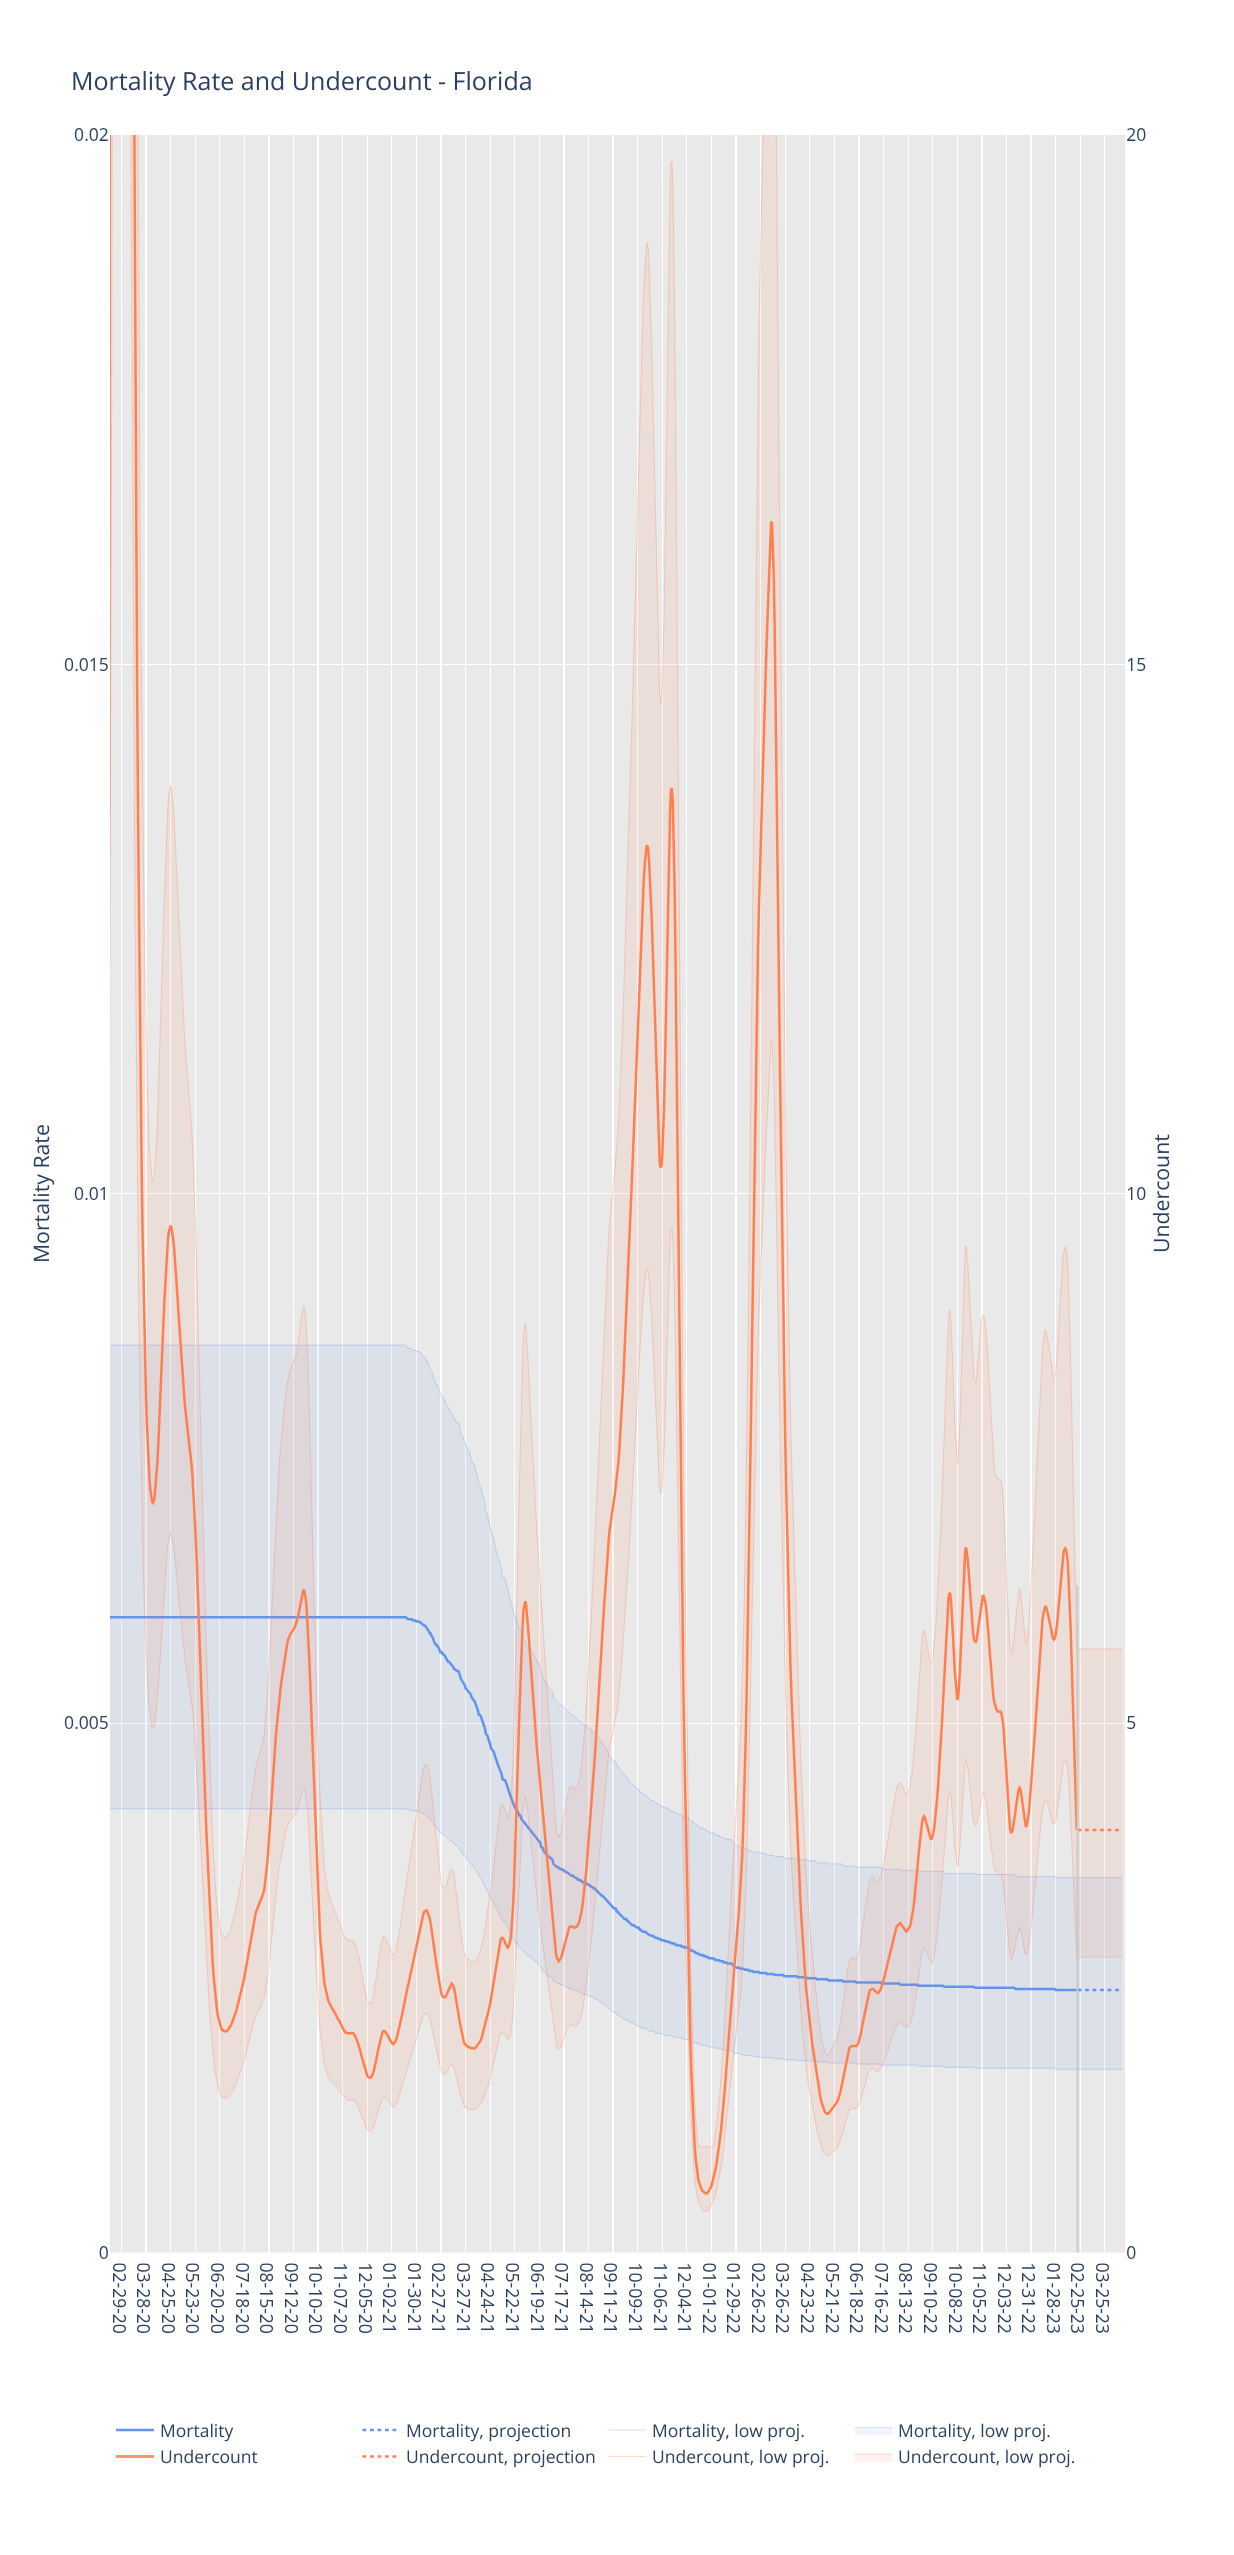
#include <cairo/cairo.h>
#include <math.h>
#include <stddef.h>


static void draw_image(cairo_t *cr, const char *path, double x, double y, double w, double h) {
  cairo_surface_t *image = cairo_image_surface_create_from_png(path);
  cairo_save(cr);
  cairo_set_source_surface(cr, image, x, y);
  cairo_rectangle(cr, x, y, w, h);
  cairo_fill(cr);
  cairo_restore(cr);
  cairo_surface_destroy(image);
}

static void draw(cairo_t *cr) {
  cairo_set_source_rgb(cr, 1, 1, 1);
  cairo_paint(cr);
  draw_image(cr, "images/1.png", 64, 128, 1082, 2205);
  cairo_new_path(cr);
  cairo_move_to(cr, 1077.5, 2252.5);
  cairo_line_to(cr, 1077.5, 1585.5);
  cairo_set_source_rgb(cr, 200 / 255.0, 200 / 255.0, 200 / 255.0);
  cairo_set_line_width(cr, 1.9);
  cairo_stroke(cr);
  cairo_new_path(cr);
  cairo_move_to(cr, 116, 2430);
  cairo_line_to(cr, 154, 2430);
  cairo_set_source_rgb(cr, 100 / 255.0, 149 / 255.0, 237 / 255.0);
  cairo_set_line_width(cr, 2.5);
  cairo_stroke(cr);
  cairo_new_path(cr);
  cairo_move_to(cr, 362.5, 2430);
  cairo_line_to(cr, 400, 2430);
  cairo_set_dash(cr, (double[]){3.75, 3.75}, 2, 0);
  cairo_stroke(cr);
  cairo_new_path(cr);
  cairo_move_to(cr, 608.5, 2430);
  cairo_line_to(cr, 646, 2430);
  cairo_set_line_width(cr, 0.3);
  cairo_set_dash(cr, NULL, 0, 0);
  cairo_stroke(cr);
  cairo_set_source_rgb(cr, 240 / 255.0, 244 / 255.0, 253 / 255.0);
  cairo_rectangle(cr, 855, 2428, 37, 7);
  cairo_fill(cr);
  cairo_set_source_rgb(cr, 209 / 255.0, 223 / 255.0, 250 / 255.0);
  cairo_rectangle(cr, 855, 2427, 37, 1);
  cairo_fill(cr);
  cairo_set_source_rgb(cr, 1, 148 / 255.0, 109 / 255.0);
  cairo_rectangle(cr, 116, 2455, 38, 3);
  cairo_fill(cr);
  cairo_new_path(cr);
  cairo_move_to(cr, 362.5, 2456.5);
  cairo_line_to(cr, 400, 2456.5);
  cairo_set_source_rgb(cr, 1, 127 / 255.0, 80 / 255.0);
  cairo_set_line_width(cr, 2.5);
  cairo_set_dash(cr, (double[]){3.75, 3.75}, 2, 0);
  cairo_stroke(cr);
  cairo_set_source_rgb(cr, 1, 217 / 255.0, 203 / 255.0);
  cairo_rectangle(cr, 609, 2456, 37, 1);
  cairo_fill(cr);
  cairo_set_source_rgb(cr, 1, 242 / 255.0, 238 / 255.0);
  cairo_rectangle(cr, 855, 2454, 37, 8);
  cairo_fill(cr);
  cairo_new_path(cr);
  cairo_move_to(cr, 854.5, 2454);
  cairo_line_to(cr, 892, 2454);
  cairo_set_source_rgb(cr, 1, 127 / 255.0, 80 / 255.0);
  cairo_set_line_width(cr, 0.3);
  cairo_set_dash(cr, NULL, 0, 0);
  cairo_stroke(cr);
  cairo_select_font_face(cr, "Open Sans", CAIRO_FONT_SLANT_NORMAL, CAIRO_FONT_WEIGHT_NORMAL);
  cairo_set_font_size(cr, 25);
  cairo_set_source_rgb(cr, 42 / 255.0, 63 / 255.0, 95 / 255.0);
  cairo_move_to(cr, 71, 90);
  cairo_show_text(cr, "Mortality Rate and Undercount - Florida");
  cairo_set_font_size(cr, 21.25);
  cairo_save(cr);
  cairo_translate(cr, 49, 1263);
  cairo_rotate(cr, -90 * M_PI / 180);
  cairo_move_to(cr, 0, 0);
  cairo_show_text(cr, "Mortality Rate");
  cairo_restore(cr);
  cairo_save(cr);
  cairo_translate(cr, 1169, 1253);
  cairo_rotate(cr, -90 * M_PI / 180);
  cairo_move_to(cr, 0, 0);
  cairo_show_text(cr, "Undercount");
  cairo_restore(cr);
  cairo_set_font_size(cr, 17.5);
  cairo_move_to(cr, 160, 2437);
  cairo_show_text(cr, "Mortality");
  cairo_move_to(cr, 406, 2437);
  cairo_show_text(cr, "Mortality, projection");
  cairo_move_to(cr, 652, 2437);
  cairo_show_text(cr, "Mortality, low proj.");
  cairo_move_to(cr, 898, 2437);
  cairo_show_text(cr, "Mortality, low proj.");
  cairo_move_to(cr, 160, 2463);
  cairo_show_text(cr, "Undercount");
  cairo_move_to(cr, 406, 2463);
  cairo_show_text(cr, "Undercount, projection");
  cairo_move_to(cr, 652, 2463);
  cairo_show_text(cr, "Undercount, low proj.");
  cairo_move_to(cr, 898, 2463);
  cairo_show_text(cr, "Undercount, low proj.");
}

int main(void) {
  cairo_surface_t *surface = cairo_image_surface_create(CAIRO_FORMAT_RGB24, 1234, 2555);
  cairo_t *cr = cairo_create(surface);
  cairo_font_options_t *options = cairo_font_options_create();
  cairo_font_options_set_hint_metrics(options, CAIRO_HINT_METRICS_OFF);
  cairo_font_options_set_hint_style(options, CAIRO_HINT_STYLE_NONE);
  cairo_set_font_options(cr, options);
  cairo_set_miter_limit(cr, 4);
  draw(cr);
  cairo_surface_write_to_png(surface, "out.png");
  cairo_font_options_destroy(options);
  cairo_destroy(cr);
  cairo_surface_destroy(surface);
  return 0;
}
